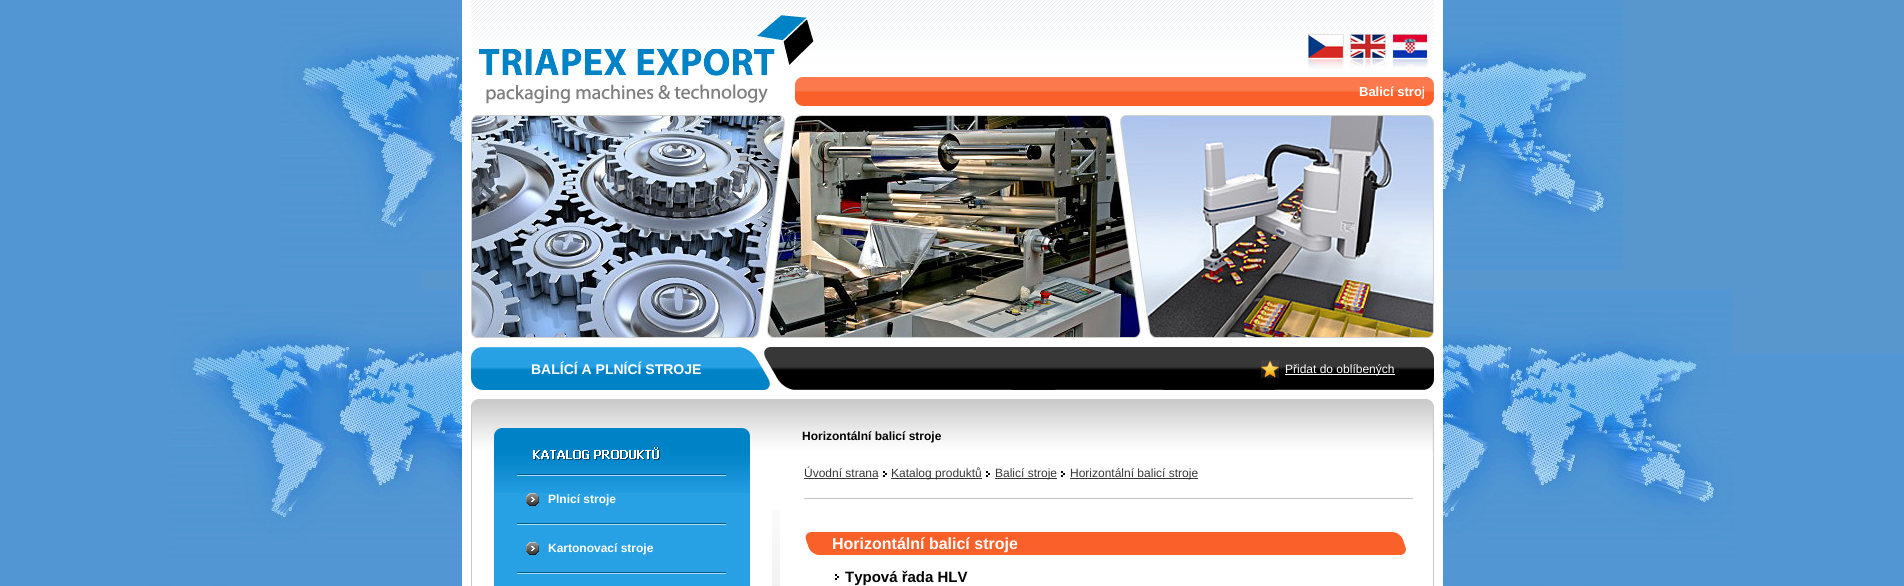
#include <cairo/cairo.h>
#include <math.h>
#include <stddef.h>


static void draw_image(cairo_t *cr, const char *path, double x, double y, double w, double h) {
  cairo_surface_t *image = cairo_image_surface_create_from_png(path);
  cairo_save(cr);
  cairo_set_source_surface(cr, image, x, y);
  cairo_rectangle(cr, x, y, w, h);
  cairo_fill(cr);
  cairo_restore(cr);
  cairo_surface_destroy(image);
}

static void draw(cairo_t *cr) {
  cairo_set_source_rgb(cr, 1, 1, 1);
  cairo_paint(cr);
  draw_image(cr, "images/1.png", 0, 0, 1904, 586);
  cairo_set_source_rgb(cr, 1, 1, 1);
  cairo_rectangle(cr, 462, 0, 981, 586);
  cairo_fill(cr);
  draw_image(cr, "images/2.png", 471, 0, 963, 106);
  draw_image(cr, "images/3.png", 1308, 34, 36, 35);
  draw_image(cr, "images/4.png", 1350, 34, 36, 34);
  draw_image(cr, "images/5.png", 1392, 34, 36, 34);
  draw_image(cr, "images/6.png", 471, 115, 963, 223);
  draw_image(cr, "images/7.png", 471, 347, 963, 43);
  draw_image(cr, "images/8.png", 1261, 360, 18, 18);
  cairo_rectangle(cr, 1285, 374, 110, 1);
  cairo_fill(cr);
  draw_image(cr, "images/9.png", 471, 399, 963, 6);
  cairo_set_source_rgb(cr, 203 / 255.0, 203 / 255.0, 203 / 255.0);
  cairo_rectangle(cr, 1433, 405, 1, 181);
  cairo_fill(cr);
  cairo_rectangle(cr, 471, 405, 1, 181);
  cairo_fill(cr);
  draw_image(cr, "images/10.png", 472, 405, 961, 45);
  cairo_set_source_rgb(cr, 39 / 255.0, 160 / 255.0, 228 / 255.0);
  cairo_rectangle(cr, 494, 493, 256, 93);
  cairo_fill(cr);
  draw_image(cr, "images/11.png", 494, 428, 256, 65);
  draw_image(cr, "images/12.png", 517, 474, 209, 2);
  draw_image(cr, "images/13.png", 526, 493, 13, 13);
  draw_image(cr, "images/12.png", 517, 523, 209, 2);
  draw_image(cr, "images/13.png", 526, 542, 13, 13);
  draw_image(cr, "images/12.png", 517, 572, 209, 2);
  draw_image(cr, "images/14.png", 772, 509, 8, 77);
  cairo_set_source_rgb(cr, 55 / 255.0, 55 / 255.0, 55 / 255.0);
  cairo_rectangle(cr, 804, 478, 74, 1);
  cairo_fill(cr);
  draw_image(cr, "images/15.png", 883, 471, 4, 6);
  cairo_rectangle(cr, 891, 478, 91, 1);
  cairo_fill(cr);
  draw_image(cr, "images/15.png", 986, 471, 4, 6);
  cairo_rectangle(cr, 995, 478, 62, 1);
  cairo_fill(cr);
  draw_image(cr, "images/15.png", 1061, 471, 4, 6);
  cairo_rectangle(cr, 1070, 478, 128, 1);
  cairo_fill(cr);
  cairo_set_source_rgb(cr, 198 / 255.0, 198 / 255.0, 198 / 255.0);
  cairo_rectangle(cr, 804, 498, 609, 1);
  cairo_fill(cr);
  draw_image(cr, "images/16.png", 805, 532, 15, 23);
  cairo_set_source_rgb(cr, 249 / 255.0, 96 / 255.0, 42 / 255.0);
  cairo_rectangle(cr, 820, 532, 571, 23);
  cairo_fill(cr);
  draw_image(cr, "images/17.png", 1391, 532, 15, 23);
  draw_image(cr, "images/15.png", 835, 574, 4, 6);
  cairo_save(cr);
  cairo_rectangle(cr, 807, 78, 617, 24);
  cairo_clip(cr);
  cairo_select_font_face(cr, "Liberation Sans", CAIRO_FONT_SLANT_NORMAL, CAIRO_FONT_WEIGHT_BOLD);
  cairo_set_font_size(cr, 13);
  cairo_set_source_rgb(cr, 1, 1, 1);
  cairo_move_to(cr, 1359, 96);
  cairo_show_text(cr, "Balicí stroj");
  cairo_restore(cr);
  cairo_select_font_face(cr, "Liberation Sans", CAIRO_FONT_SLANT_NORMAL, CAIRO_FONT_WEIGHT_BOLD);
  cairo_set_font_size(cr, 14);
  cairo_set_source_rgb(cr, 1, 1, 1);
  cairo_move_to(cr, 531, 374);
  cairo_show_text(cr, "BALÍCÍ A PLNÍCÍ STROJE");
  cairo_select_font_face(cr, "Liberation Sans", CAIRO_FONT_SLANT_NORMAL, CAIRO_FONT_WEIGHT_NORMAL);
  cairo_set_font_size(cr, 12);
  cairo_move_to(cr, 1285, 373);
  cairo_show_text(cr, "Přidat do oblíbených");
  cairo_select_font_face(cr, "Liberation Sans", CAIRO_FONT_SLANT_NORMAL, CAIRO_FONT_WEIGHT_BOLD);
  cairo_move_to(cr, 548, 503);
  cairo_show_text(cr, "Plnicí stroje");
  cairo_move_to(cr, 548, 552);
  cairo_show_text(cr, "Kartonovací stroje");
  cairo_set_source_rgb(cr, 0, 0, 0);
  cairo_move_to(cr, 802, 440);
  cairo_show_text(cr, "Horizontální balicí stroje");
  cairo_select_font_face(cr, "Liberation Sans", CAIRO_FONT_SLANT_NORMAL, CAIRO_FONT_WEIGHT_NORMAL);
  cairo_set_source_rgb(cr, 55 / 255.0, 55 / 255.0, 55 / 255.0);
  cairo_move_to(cr, 804, 477);
  cairo_show_text(cr, "Úvodní strana");
  cairo_move_to(cr, 891, 477);
  cairo_show_text(cr, "Katalog produktů");
  cairo_move_to(cr, 995, 477);
  cairo_show_text(cr, "Balicí stroje");
  cairo_move_to(cr, 1070, 477);
  cairo_show_text(cr, "Horizontální balicí stroje");
  cairo_select_font_face(cr, "Liberation Sans", CAIRO_FONT_SLANT_NORMAL, CAIRO_FONT_WEIGHT_BOLD);
  cairo_set_font_size(cr, 16);
  cairo_set_source_rgb(cr, 1, 1, 1);
  cairo_move_to(cr, 832, 549);
  cairo_show_text(cr, "Horizontální balicí stroje");
  cairo_set_font_size(cr, 15);
  cairo_set_source_rgb(cr, 0, 0, 0);
  cairo_move_to(cr, 845, 582);
  cairo_show_text(cr, "Typová řada HLV");
}

int main(void) {
  cairo_surface_t *surface = cairo_image_surface_create(CAIRO_FORMAT_RGB24, 1904, 586);
  cairo_t *cr = cairo_create(surface);
  cairo_font_options_t *options = cairo_font_options_create();
  cairo_font_options_set_hint_metrics(options, CAIRO_HINT_METRICS_OFF);
  cairo_font_options_set_hint_style(options, CAIRO_HINT_STYLE_NONE);
  cairo_set_font_options(cr, options);
  cairo_set_miter_limit(cr, 4);
  draw(cr);
  cairo_surface_write_to_png(surface, "out.png");
  cairo_font_options_destroy(options);
  cairo_destroy(cr);
  cairo_surface_destroy(surface);
  return 0;
}
